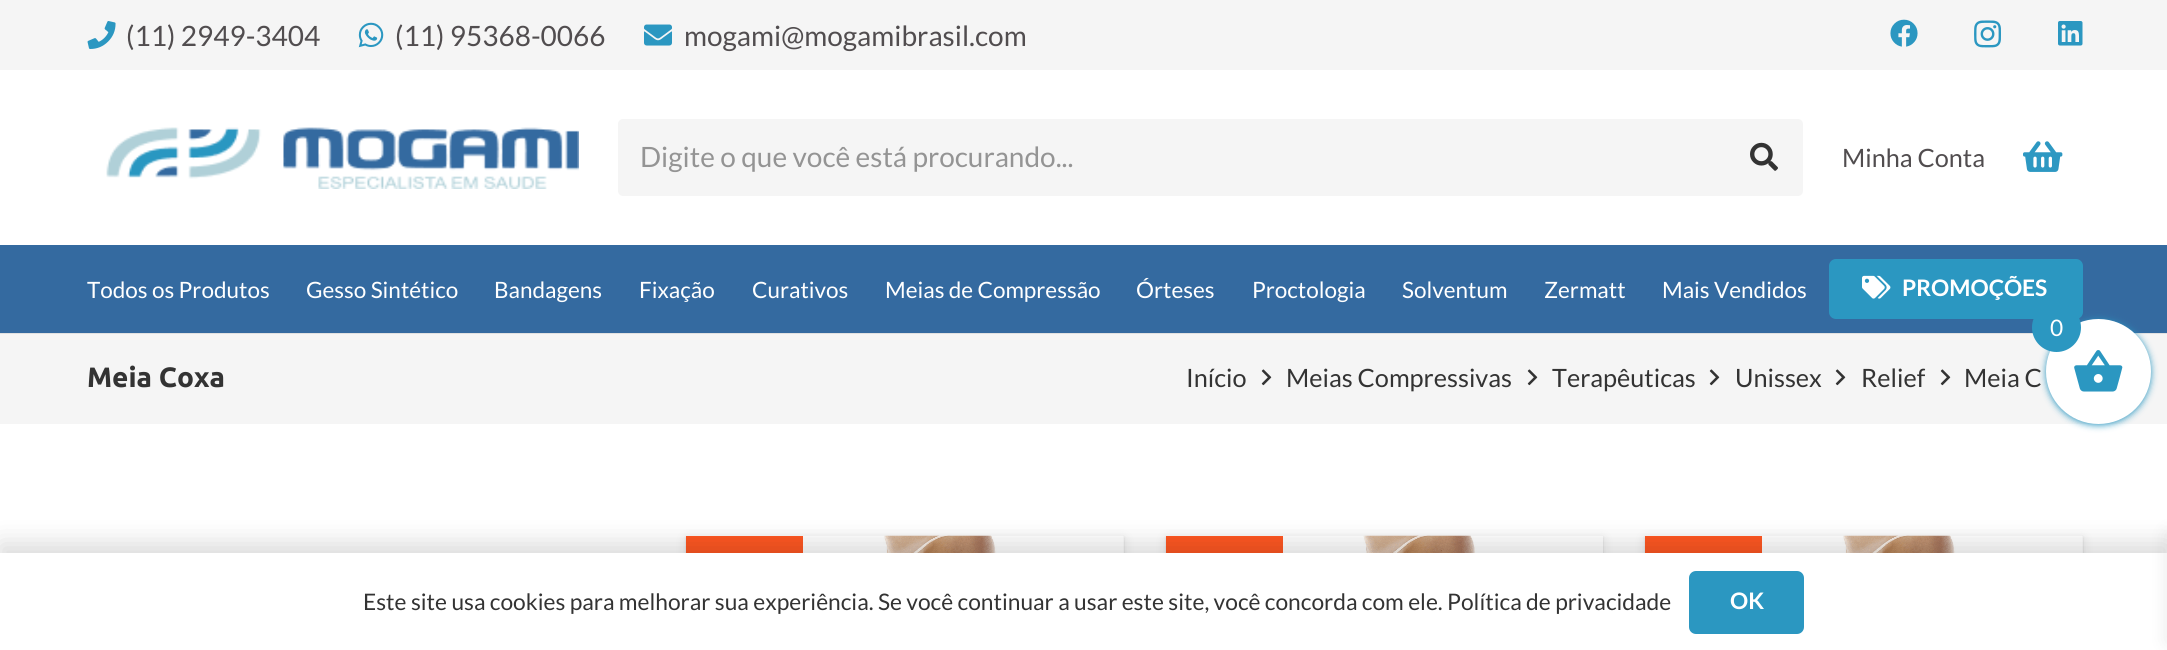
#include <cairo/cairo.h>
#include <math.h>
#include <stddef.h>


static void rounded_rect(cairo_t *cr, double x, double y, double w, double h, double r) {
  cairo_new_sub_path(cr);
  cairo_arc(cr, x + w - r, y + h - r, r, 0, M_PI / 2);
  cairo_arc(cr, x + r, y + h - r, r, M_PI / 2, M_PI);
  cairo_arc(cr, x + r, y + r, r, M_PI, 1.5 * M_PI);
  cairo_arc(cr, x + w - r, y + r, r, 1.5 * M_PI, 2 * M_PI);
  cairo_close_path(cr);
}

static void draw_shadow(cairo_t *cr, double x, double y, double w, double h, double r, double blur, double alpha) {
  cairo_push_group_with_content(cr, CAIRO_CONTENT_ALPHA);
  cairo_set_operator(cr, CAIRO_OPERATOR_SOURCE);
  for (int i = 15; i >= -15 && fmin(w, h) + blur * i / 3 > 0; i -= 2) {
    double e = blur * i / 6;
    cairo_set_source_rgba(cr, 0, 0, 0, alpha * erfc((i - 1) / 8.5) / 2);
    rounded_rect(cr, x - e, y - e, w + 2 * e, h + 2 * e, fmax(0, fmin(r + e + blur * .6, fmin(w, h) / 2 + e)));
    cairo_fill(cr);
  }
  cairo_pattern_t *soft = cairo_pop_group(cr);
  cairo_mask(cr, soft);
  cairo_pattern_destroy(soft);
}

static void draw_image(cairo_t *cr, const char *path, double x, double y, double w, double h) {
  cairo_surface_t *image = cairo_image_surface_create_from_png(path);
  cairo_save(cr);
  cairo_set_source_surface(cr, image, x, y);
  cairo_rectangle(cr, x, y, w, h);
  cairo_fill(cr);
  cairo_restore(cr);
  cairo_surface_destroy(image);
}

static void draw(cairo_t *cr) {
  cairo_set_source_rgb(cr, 1, 1, 1);
  cairo_paint(cr);
  cairo_set_source_rgb(cr, 245 / 255.0, 245 / 255.0, 245 / 255.0);
  cairo_rectangle(cr, 0, 0, 2167, 424);
  cairo_fill(cr);
  draw_image(cr, "images/1.png", 87, 21, 29, 28);
  draw_image(cr, "images/2.png", 358, 22, 26, 26);
  draw_image(cr, "images/3.png", 644, 24, 28, 22);
  draw_image(cr, "images/4.png", 1890, 19, 28, 28);
  draw_image(cr, "images/5.png", 1974, 20, 27, 28);
  draw_image(cr, "images/6.png", 2058, 21, 25, 25);
  cairo_set_source_rgb(cr, 1, 1, 1);
  cairo_rectangle(cr, 0, 70, 2167, 175);
  cairo_fill(cr);
  draw_image(cr, "images/7.png", 106, 127, 473, 62);
  cairo_set_source_rgb(cr, 245 / 255.0, 245 / 255.0, 245 / 255.0);
  rounded_rect(cr, 618, 119, 1185, 77, 5);
  cairo_fill(cr);
  draw_image(cr, "images/8.png", 1750, 142, 28, 29);
  draw_image(cr, "images/9.png", 2023, 141, 40, 31);
  cairo_set_source_rgb(cr, 225 / 255.0, 225 / 255.0, 225 / 255.0);
  cairo_rectangle(cr, 0, 333, 2167, 1);
  cairo_fill(cr);
  cairo_set_source_rgb(cr, 52 / 255.0, 106 / 255.0, 160 / 255.0);
  cairo_rectangle(cr, 0, 245, 2167, 88);
  cairo_fill(cr);
  cairo_set_source_rgb(cr, 43 / 255.0, 151 / 255.0, 193 / 255.0);
  rounded_rect(cr, 1829, 259, 254, 60, 7);
  cairo_fill(cr);
  draw_image(cr, "images/10.png", 1862, 275, 29, 24);
  draw_image(cr, "images/11.png", 1261, 369, 11, 17);
  draw_image(cr, "images/11.png", 1527, 369, 11, 17);
  draw_image(cr, "images/11.png", 1709, 369, 11, 17);
  draw_image(cr, "images/11.png", 1835, 369, 11, 17);
  draw_image(cr, "images/11.png", 1940, 369, 11, 17);
  cairo_set_source_rgb(cr, 0, 0, 0);
  draw_shadow(cr, 686, 539, 438, 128, 0, 5.5, 0.1);
  draw_shadow(cr, 686, 537, 438, 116, 0, 1, 0.1);
  cairo_set_source_rgb(cr, 250 / 255.0, 250 / 255.0, 250 / 255.0);
  cairo_rectangle(cr, 1123, 536, 1, 17);
  cairo_fill(cr);
  draw_image(cr, "images/12.png", 686, 535, 437, 18);
  cairo_set_source_rgb(cr, 1, 87 / 255.0, 34 / 255.0);
  cairo_rectangle(cr, 686, 536, 117, 17);
  cairo_fill(cr);
  cairo_set_source_rgb(cr, 0, 0, 0);
  draw_shadow(cr, 1166, 539, 437, 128, 0, 5.5, 0.1);
  draw_shadow(cr, 1166, 537, 437, 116, 0, 1, 0.1);
  draw_image(cr, "images/13.png", 1166, 535, 437, 18);
  cairo_set_source_rgb(cr, 1, 87 / 255.0, 34 / 255.0);
  cairo_rectangle(cr, 1166, 536, 117, 17);
  cairo_fill(cr);
  cairo_set_source_rgb(cr, 0, 0, 0);
  draw_shadow(cr, 1645, 539, 438, 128, 0, 5.5, 0.1);
  draw_shadow(cr, 1645, 537, 438, 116, 0, 1, 0.1);
  cairo_set_source_rgb(cr, 250 / 255.0, 250 / 255.0, 250 / 255.0);
  cairo_rectangle(cr, 2082, 536, 1, 17);
  cairo_fill(cr);
  draw_image(cr, "images/14.png", 1645, 535, 437, 18);
  cairo_set_source_rgb(cr, 1, 87 / 255.0, 34 / 255.0);
  cairo_rectangle(cr, 1645, 536, 117, 17);
  cairo_fill(cr);
  cairo_set_source_rgb(cr, 43 / 255.0, 151 / 255.0, 193 / 255.0);
  draw_shadow(cr, 2046, 320, 105, 105, 52.5, 3.5, 1);
  cairo_set_source_rgb(cr, 1, 1, 1);
  cairo_arc(cr, 2098.5, 371.5, 52.5, 0, 2 * M_PI);
  cairo_fill(cr);
  draw_image(cr, "images/15.png", 2074, 350, 49, 42);
  cairo_set_source_rgb(cr, 43 / 255.0, 151 / 255.0, 193 / 255.0);
  cairo_arc(cr, 2056.5, 327.5, 24.5, 0, 2 * M_PI);
  cairo_fill(cr);
  cairo_set_source_rgb(cr, 0, 0, 0);
  draw_shadow(cr, 0, 544, 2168, 98, 0, 13, 0.15);
  cairo_set_source_rgb(cr, 1, 1, 1);
  cairo_rectangle(cr, 0, 553, 2167, 97);
  cairo_fill(cr);
  cairo_set_source_rgb(cr, 0, 0, 0);
  draw_shadow(cr, 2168, 534, 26, 108, 0, 9, 0.1);
  cairo_set_source_rgb(cr, 43 / 255.0, 151 / 255.0, 193 / 255.0);
  rounded_rect(cr, 1689, 571, 115, 63, 7);
  cairo_fill(cr);
  cairo_select_font_face(cr, "Lato", CAIRO_FONT_SLANT_NORMAL, CAIRO_FONT_WEIGHT_NORMAL);
  cairo_set_font_size(cr, 28);
  cairo_set_source_rgb(cr, 81 / 255.0, 77 / 255.0, 79 / 255.0);
  cairo_move_to(cr, 126, 46);
  cairo_show_text(cr, "(11) 2949-3404");
  cairo_move_to(cr, 395, 46);
  cairo_show_text(cr, "(11) 95368-0066");
  cairo_move_to(cr, 684, 46);
  cairo_show_text(cr, "mogami@mogamibrasil.com");
  cairo_set_source_rgb(cr, 148 / 255.0, 148 / 255.0, 148 / 255.0);
  cairo_move_to(cr, 640, 167);
  cairo_show_text(cr, "Digite o que você está procurando...");
  cairo_set_font_size(cr, 25.25);
  cairo_set_source_rgb(cr, 81 / 255.0, 77 / 255.0, 79 / 255.0);
  cairo_move_to(cr, 1842, 167);
  cairo_show_text(cr, "Minha Conta");
  cairo_set_font_size(cr, 22.5);
  cairo_set_source_rgb(cr, 1, 1, 1);
  cairo_move_to(cr, 87, 298);
  cairo_show_text(cr, "Todos os Produtos");
  cairo_move_to(cr, 306, 298);
  cairo_show_text(cr, "Gesso Sintético");
  cairo_move_to(cr, 494, 298);
  cairo_show_text(cr, "Bandagens");
  cairo_move_to(cr, 639, 298);
  cairo_show_text(cr, "Fixação");
  cairo_move_to(cr, 752, 298);
  cairo_show_text(cr, "Curativos");
  cairo_move_to(cr, 885, 298);
  cairo_show_text(cr, "Meias de Compressão");
  cairo_move_to(cr, 1136, 298);
  cairo_show_text(cr, "Órteses");
  cairo_move_to(cr, 1252, 298);
  cairo_show_text(cr, "Proctologia");
  cairo_move_to(cr, 1402, 298);
  cairo_show_text(cr, "Solventum");
  cairo_move_to(cr, 1544, 298);
  cairo_show_text(cr, "Zermatt");
  cairo_move_to(cr, 1662, 298);
  cairo_show_text(cr, "Mais Vendidos");
  cairo_select_font_face(cr, "Lato", CAIRO_FONT_SLANT_NORMAL, CAIRO_FONT_WEIGHT_BOLD);
  cairo_set_font_size(cr, 22.75);
  cairo_move_to(cr, 1902, 296);
  cairo_show_text(cr, "PROMOÇÕES");
  cairo_select_font_face(cr, "Ubuntu", CAIRO_FONT_SLANT_NORMAL, CAIRO_FONT_WEIGHT_BOLD);
  cairo_set_font_size(cr, 28);
  cairo_set_source_rgb(cr, 51 / 255.0, 51 / 255.0, 51 / 255.0);
  cairo_move_to(cr, 87, 387);
  cairo_show_text(cr, "Meia Coxa");
  cairo_select_font_face(cr, "Lato", CAIRO_FONT_SLANT_NORMAL, CAIRO_FONT_WEIGHT_NORMAL);
  cairo_set_font_size(cr, 25.25);
  cairo_move_to(cr, 1186, 387);
  cairo_show_text(cr, "Início");
  cairo_move_to(cr, 1286, 387);
  cairo_show_text(cr, "Meias Compressivas");
  cairo_move_to(cr, 1552, 387);
  cairo_show_text(cr, "Terapêuticas");
  cairo_move_to(cr, 1735, 387);
  cairo_show_text(cr, "Unissex");
  cairo_move_to(cr, 1861, 387);
  cairo_show_text(cr, "Relief");
  cairo_move_to(cr, 1964, 387);
  cairo_show_text(cr, "Meia C");
  cairo_set_font_size(cr, 22.75);
  cairo_set_source_rgb(cr, 1, 1, 1);
  cairo_move_to(cr, 2050, 336);
  cairo_show_text(cr, "0");
  cairo_set_source_rgb(cr, 51 / 255.0, 51 / 255.0, 51 / 255.0);
  cairo_move_to(cr, 363, 610);
  cairo_show_text(cr, "Este site usa cookies para melhorar sua experiência. Se você continuar a usar este site, você concorda com ele. Política de privacidade");
  cairo_select_font_face(cr, "Lato", CAIRO_FONT_SLANT_NORMAL, CAIRO_FONT_WEIGHT_BOLD);
  cairo_set_source_rgb(cr, 1, 1, 1);
  cairo_move_to(cr, 1730, 609);
  cairo_show_text(cr, "OK");
}

int main(void) {
  cairo_surface_t *surface = cairo_image_surface_create(CAIRO_FORMAT_RGB24, 2167, 650);
  cairo_t *cr = cairo_create(surface);
  cairo_font_options_t *options = cairo_font_options_create();
  cairo_font_options_set_hint_metrics(options, CAIRO_HINT_METRICS_OFF);
  cairo_font_options_set_hint_style(options, CAIRO_HINT_STYLE_NONE);
  cairo_set_font_options(cr, options);
  cairo_set_miter_limit(cr, 4);
  draw(cr);
  cairo_surface_write_to_png(surface, "out.png");
  cairo_font_options_destroy(options);
  cairo_destroy(cr);
  cairo_surface_destroy(surface);
  return 0;
}
